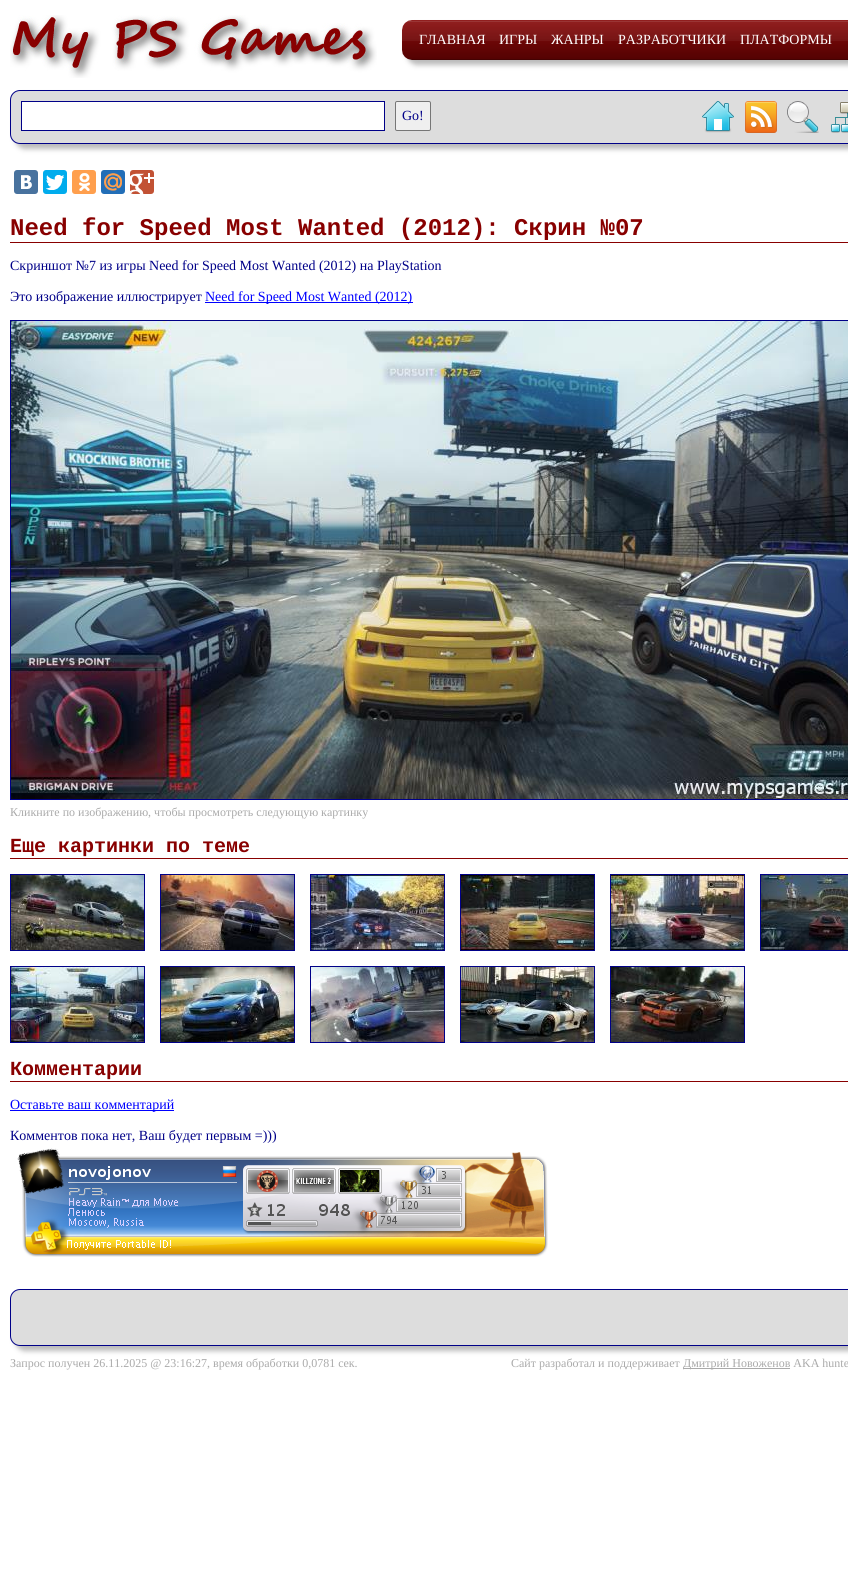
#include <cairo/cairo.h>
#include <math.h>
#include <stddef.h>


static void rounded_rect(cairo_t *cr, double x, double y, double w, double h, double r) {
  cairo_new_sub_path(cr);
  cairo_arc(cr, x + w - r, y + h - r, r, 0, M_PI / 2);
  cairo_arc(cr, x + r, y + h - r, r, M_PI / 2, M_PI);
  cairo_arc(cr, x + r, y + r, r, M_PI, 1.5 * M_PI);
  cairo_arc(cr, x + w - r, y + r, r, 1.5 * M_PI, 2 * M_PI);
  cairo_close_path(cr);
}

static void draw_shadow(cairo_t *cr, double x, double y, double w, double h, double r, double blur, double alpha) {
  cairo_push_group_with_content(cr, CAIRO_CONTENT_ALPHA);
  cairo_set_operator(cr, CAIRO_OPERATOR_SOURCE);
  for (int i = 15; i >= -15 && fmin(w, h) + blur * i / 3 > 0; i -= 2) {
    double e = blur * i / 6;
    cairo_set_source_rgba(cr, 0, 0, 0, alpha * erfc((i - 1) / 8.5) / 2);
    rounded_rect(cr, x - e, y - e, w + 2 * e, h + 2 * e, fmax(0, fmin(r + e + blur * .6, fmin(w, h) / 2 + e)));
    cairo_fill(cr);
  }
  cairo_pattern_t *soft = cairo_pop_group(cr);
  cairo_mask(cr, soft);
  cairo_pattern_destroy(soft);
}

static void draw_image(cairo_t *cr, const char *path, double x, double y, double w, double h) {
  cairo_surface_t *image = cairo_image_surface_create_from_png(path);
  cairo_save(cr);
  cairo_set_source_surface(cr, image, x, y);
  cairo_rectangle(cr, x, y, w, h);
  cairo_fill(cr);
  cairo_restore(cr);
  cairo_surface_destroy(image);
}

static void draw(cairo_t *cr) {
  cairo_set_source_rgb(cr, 1, 1, 1);
  cairo_paint(cr);
  draw_image(cr, "images/1.png", 10, 15, 367, 63);
  cairo_set_source_rgb(cr, 187 / 255.0, 187 / 255.0, 187 / 255.0);
  draw_shadow(cr, 407, 25, 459, 40, 10, 2.5, 1);
  draw_image(cr, "images/2.png", 402, 20, 446, 40);
  draw_shadow(cr, 15, 95, 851, 54, 10, 2.5, 1);
  cairo_set_source_rgb(cr, 221 / 255.0, 221 / 255.0, 221 / 255.0);
  rounded_rect(cr, 10.5, 90.5, 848, 53, 9.5);
  cairo_fill_preserve(cr);
  cairo_set_source_rgb(cr, 0, 0, 136 / 255.0);
  cairo_set_line_width(cr, 1);
  cairo_stroke(cr);
  cairo_set_source_rgb(cr, 1, 1, 1);
  cairo_rectangle(cr, 21.5, 101.5, 363, 29);
  cairo_fill_preserve(cr);
  cairo_set_source_rgb(cr, 0, 0, 136 / 255.0);
  cairo_stroke(cr);
  cairo_set_source_rgb(cr, 239 / 255.0, 239 / 255.0, 239 / 255.0);
  rounded_rect(cr, 395.5, 101.5, 35, 29, 1.5);
  cairo_fill_preserve(cr);
  cairo_set_source_rgb(cr, 118 / 255.0, 118 / 255.0, 118 / 255.0);
  cairo_stroke(cr);
  draw_image(cr, "images/3.png", 702, 101, 32, 32);
  draw_image(cr, "images/4.png", 745, 101, 32, 32);
  draw_image(cr, "images/5.png", 787, 101, 32, 32);
  draw_image(cr, "images/6.png", 831, 102, 17, 31);
  cairo_set_source_rgb(cr, 72 / 255.0, 114 / 255.0, 158 / 255.0);
  rounded_rect(cr, 14, 170, 24, 24, 3);
  cairo_fill(cr);
  draw_image(cr, "images/7.png", 21, 175, 11, 14);
  cairo_set_source_rgb(cr, 0, 172 / 255.0, 237 / 255.0);
  rounded_rect(cr, 43, 170, 24, 24, 3);
  cairo_fill(cr);
  draw_image(cr, "images/8.png", 46, 175, 18, 15);
  cairo_set_source_rgb(cr, 1, 159 / 255.0, 77 / 255.0);
  rounded_rect(cr, 72, 170, 24, 24, 3);
  cairo_fill(cr);
  draw_image(cr, "images/9.png", 79, 173, 11, 18);
  cairo_set_source_rgb(cr, 34 / 255.0, 110 / 255.0, 183 / 255.0);
  rounded_rect(cr, 101, 170, 24, 24, 3);
  cairo_fill(cr);
  draw_image(cr, "images/10.png", 104, 173, 18, 18);
  cairo_set_source_rgb(cr, 194 / 255.0, 82 / 255.0, 52 / 255.0);
  rounded_rect(cr, 130, 170, 24, 24, 3);
  cairo_fill(cr);
  draw_image(cr, "images/11.png", 130, 173, 24, 21);
  cairo_set_source_rgb(cr, 136 / 255.0, 0, 0);
  cairo_rectangle(cr, 10, 242, 838, 1);
  cairo_fill(cr);
  cairo_set_source_rgb(cr, 0, 0, 1);
  cairo_rectangle(cr, 205, 302, 208, 1);
  cairo_fill(cr);
  cairo_rectangle(cr, 10.5, 320.5, 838, 479);
  cairo_set_source_rgb(cr, 0, 0, 136 / 255.0);
  cairo_stroke(cr);
  draw_image(cr, "images/12.png", 11, 321, 837, 478);
  cairo_set_source_rgb(cr, 136 / 255.0, 0, 0);
  cairo_rectangle(cr, 10, 858, 838, 1);
  cairo_fill(cr);
  cairo_rectangle(cr, 10.5, 874.5, 134, 76);
  cairo_set_source_rgb(cr, 0, 0, 136 / 255.0);
  cairo_stroke(cr);
  draw_image(cr, "images/13.png", 11, 875, 133, 75);
  cairo_rectangle(cr, 160.5, 874.5, 134, 76);
  cairo_stroke(cr);
  draw_image(cr, "images/14.png", 161, 875, 133, 75);
  cairo_rectangle(cr, 310.5, 874.5, 134, 76);
  cairo_stroke(cr);
  draw_image(cr, "images/15.png", 311, 875, 133, 75);
  cairo_rectangle(cr, 460.5, 874.5, 134, 76);
  cairo_stroke(cr);
  draw_image(cr, "images/16.png", 461, 875, 133, 75);
  cairo_rectangle(cr, 610.5, 874.5, 134, 76);
  cairo_stroke(cr);
  draw_image(cr, "images/17.png", 611, 875, 133, 75);
  cairo_rectangle(cr, 760.5, 874.5, 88, 76);
  cairo_stroke(cr);
  draw_image(cr, "images/18.png", 761, 875, 87, 75);
  cairo_rectangle(cr, 10.5, 966.5, 134, 76);
  cairo_stroke(cr);
  draw_image(cr, "images/19.png", 11, 967, 133, 75);
  cairo_rectangle(cr, 160.5, 966.5, 134, 76);
  cairo_stroke(cr);
  draw_image(cr, "images/20.png", 161, 967, 133, 75);
  cairo_rectangle(cr, 310.5, 966.5, 134, 76);
  cairo_stroke(cr);
  draw_image(cr, "images/21.png", 311, 967, 133, 75);
  cairo_rectangle(cr, 460.5, 966.5, 134, 76);
  cairo_stroke(cr);
  draw_image(cr, "images/22.png", 461, 967, 133, 75);
  cairo_rectangle(cr, 610.5, 966.5, 134, 76);
  cairo_stroke(cr);
  draw_image(cr, "images/23.png", 611, 967, 133, 75);
  cairo_set_source_rgb(cr, 136 / 255.0, 0, 0);
  cairo_rectangle(cr, 10, 1081, 838, 1);
  cairo_fill(cr);
  cairo_set_source_rgb(cr, 0, 0, 1);
  cairo_rectangle(cr, 10, 1110, 164, 1);
  cairo_fill(cr);
  draw_image(cr, "images/24.png", 17, 1148, 531, 109);
  cairo_set_source_rgb(cr, 187 / 255.0, 187 / 255.0, 187 / 255.0);
  draw_shadow(cr, 15, 1294, 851, 57, 10, 2.5, 1);
  cairo_set_source_rgb(cr, 221 / 255.0, 221 / 255.0, 221 / 255.0);
  rounded_rect(cr, 10.5, 1289.5, 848, 56, 9.5);
  cairo_fill_preserve(cr);
  cairo_set_source_rgb(cr, 0, 0, 136 / 255.0);
  cairo_stroke(cr);
  cairo_set_source_rgb(cr, 170 / 255.0, 170 / 255.0, 170 / 255.0);
  cairo_rectangle(cr, 683, 1368, 107, 1);
  cairo_fill(cr);
  cairo_select_font_face(cr, "Liberation Serif", CAIRO_FONT_SLANT_NORMAL, CAIRO_FONT_WEIGHT_NORMAL);
  cairo_set_font_size(cr, 14);
  cairo_set_source_rgb(cr, 1, 1, 1);
  cairo_move_to(cr, 419, 44);
  cairo_show_text(cr, "ГЛАВНАЯ");
  cairo_move_to(cr, 499, 44);
  cairo_show_text(cr, "ИГРЫ");
  cairo_move_to(cr, 551, 44);
  cairo_show_text(cr, "ЖАНРЫ");
  cairo_move_to(cr, 618, 44);
  cairo_show_text(cr, "РАЗРАБОТЧИКИ");
  cairo_move_to(cr, 740, 44);
  cairo_show_text(cr, "ПЛАТФОРМЫ");
  cairo_set_source_rgb(cr, 0, 0, 136 / 255.0);
  cairo_move_to(cr, 402, 120);
  cairo_show_text(cr, "Go!");
  cairo_select_font_face(cr, "Liberation Mono", CAIRO_FONT_SLANT_NORMAL, CAIRO_FONT_WEIGHT_BOLD);
  cairo_set_font_size(cr, 24);
  cairo_set_source_rgb(cr, 136 / 255.0, 0, 0);
  cairo_move_to(cr, 10, 235);
  cairo_show_text(cr, "Need for Speed Most Wanted (2012): Скрин №07");
  cairo_select_font_face(cr, "Liberation Serif", CAIRO_FONT_SLANT_NORMAL, CAIRO_FONT_WEIGHT_NORMAL);
  cairo_set_font_size(cr, 14);
  cairo_set_source_rgb(cr, 0, 0, 136 / 255.0);
  cairo_move_to(cr, 10, 270);
  cairo_show_text(cr, "Скриншот №7 из игры Need for Speed Most Wanted (2012) на PlayStation");
  cairo_move_to(cr, 10, 301);
  cairo_show_text(cr, "Это изображение иллюстрирует");
  cairo_set_source_rgb(cr, 0, 0, 1);
  cairo_move_to(cr, 205, 301);
  cairo_show_text(cr, "Need for Speed Most Wanted (2012)");
  cairo_set_font_size(cr, 12);
  cairo_set_source_rgb(cr, 170 / 255.0, 170 / 255.0, 170 / 255.0);
  cairo_move_to(cr, 10, 816);
  cairo_show_text(cr, "Кликните по изображению, чтобы просмотреть следующую картинку");
  cairo_select_font_face(cr, "Liberation Mono", CAIRO_FONT_SLANT_NORMAL, CAIRO_FONT_WEIGHT_BOLD);
  cairo_set_font_size(cr, 20);
  cairo_set_source_rgb(cr, 136 / 255.0, 0, 0);
  cairo_move_to(cr, 10, 852);
  cairo_show_text(cr, "Еще картинки по теме");
  cairo_move_to(cr, 10, 1075);
  cairo_show_text(cr, "Комментарии");
  cairo_select_font_face(cr, "Liberation Serif", CAIRO_FONT_SLANT_NORMAL, CAIRO_FONT_WEIGHT_NORMAL);
  cairo_set_font_size(cr, 14);
  cairo_set_source_rgb(cr, 0, 0, 1);
  cairo_move_to(cr, 10, 1109);
  cairo_show_text(cr, "Оставьте ваш комментарий");
  cairo_set_source_rgb(cr, 0, 0, 136 / 255.0);
  cairo_move_to(cr, 10, 1140);
  cairo_show_text(cr, "Комментов пока нет, Ваш будет первым =)))");
  cairo_set_font_size(cr, 12);
  cairo_set_source_rgb(cr, 170 / 255.0, 170 / 255.0, 170 / 255.0);
  cairo_move_to(cr, 10, 1367);
  cairo_show_text(cr, "Запрос получен 26.11.2025 @ 23:16:27, время обработки 0,0781 сек.");
  cairo_move_to(cr, 511, 1367);
  cairo_show_text(cr, "Сайт разработал и поддерживает");
  cairo_move_to(cr, 683, 1367);
  cairo_show_text(cr, "Дмитрий Новоженов AKA hunte");
}

int main(void) {
  cairo_surface_t *surface = cairo_image_surface_create(CAIRO_FORMAT_RGB24, 848, 1572);
  cairo_t *cr = cairo_create(surface);
  cairo_font_options_t *options = cairo_font_options_create();
  cairo_font_options_set_hint_metrics(options, CAIRO_HINT_METRICS_OFF);
  cairo_font_options_set_hint_style(options, CAIRO_HINT_STYLE_NONE);
  cairo_set_font_options(cr, options);
  cairo_set_miter_limit(cr, 4);
  draw(cr);
  cairo_surface_write_to_png(surface, "out.png");
  cairo_font_options_destroy(options);
  cairo_destroy(cr);
  cairo_surface_destroy(surface);
  return 0;
}
